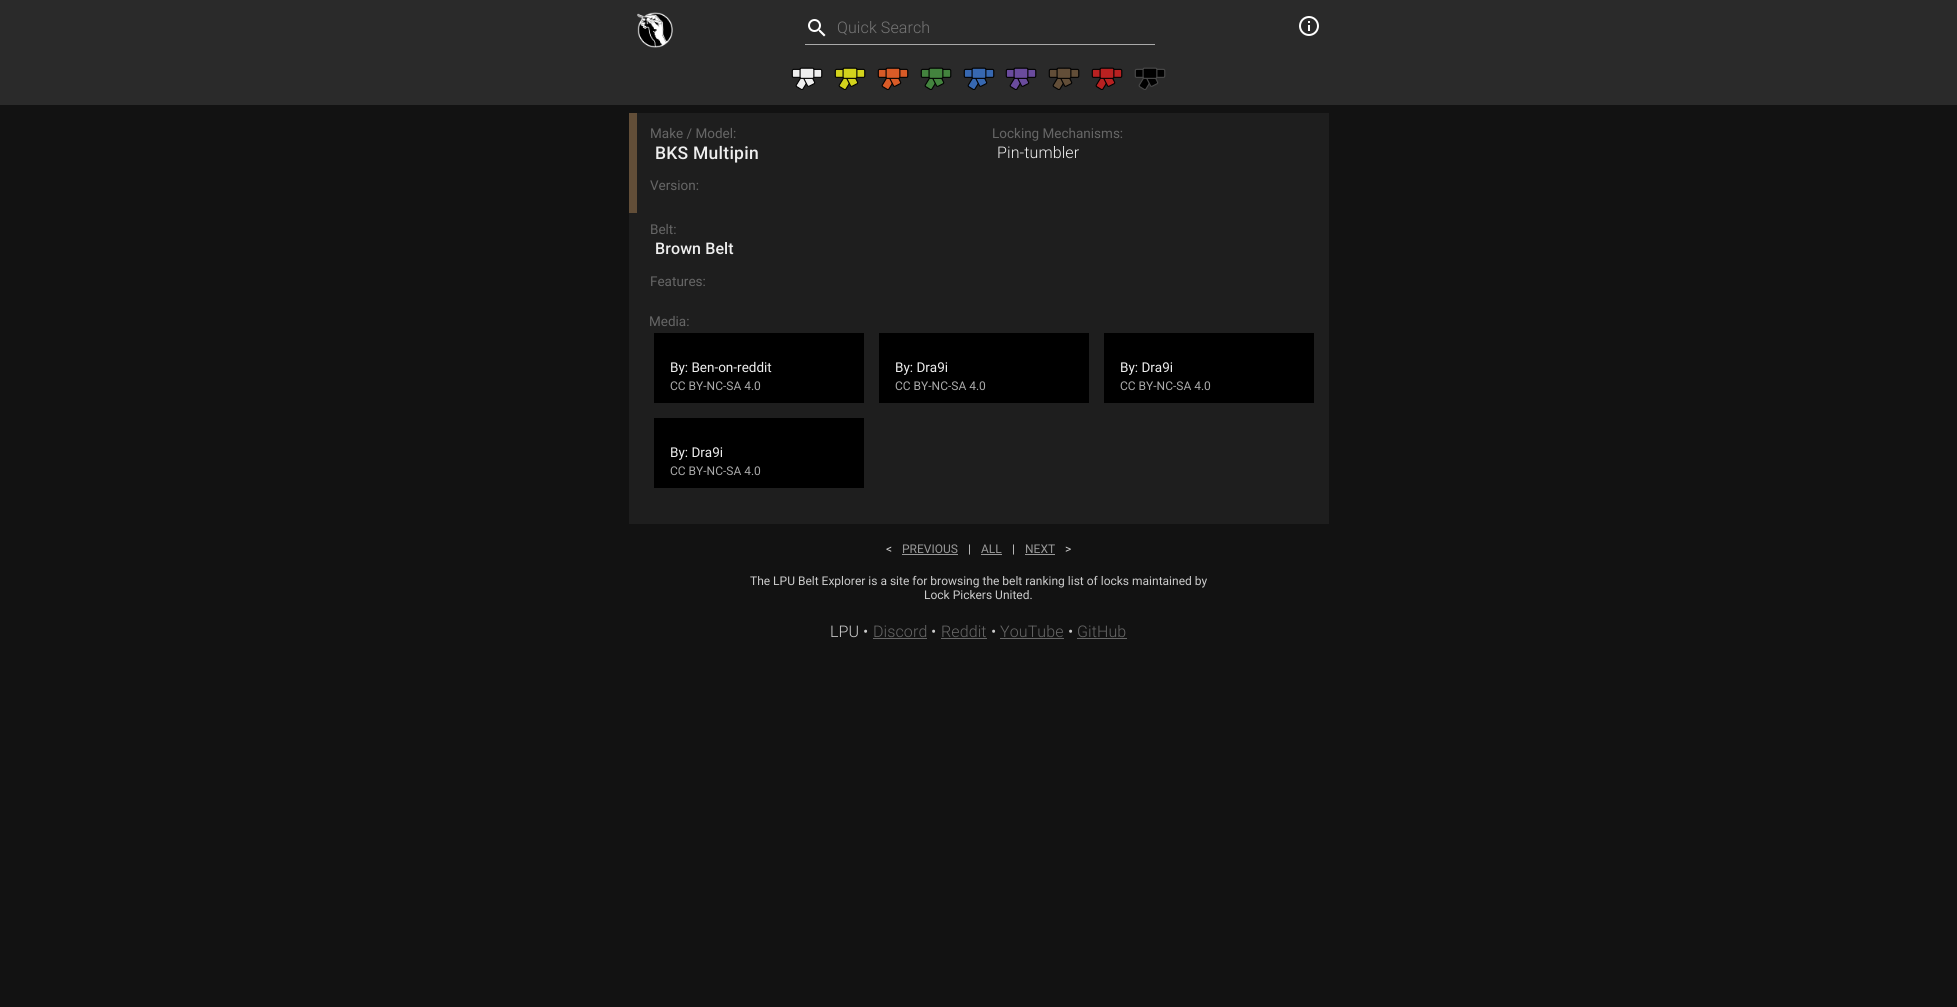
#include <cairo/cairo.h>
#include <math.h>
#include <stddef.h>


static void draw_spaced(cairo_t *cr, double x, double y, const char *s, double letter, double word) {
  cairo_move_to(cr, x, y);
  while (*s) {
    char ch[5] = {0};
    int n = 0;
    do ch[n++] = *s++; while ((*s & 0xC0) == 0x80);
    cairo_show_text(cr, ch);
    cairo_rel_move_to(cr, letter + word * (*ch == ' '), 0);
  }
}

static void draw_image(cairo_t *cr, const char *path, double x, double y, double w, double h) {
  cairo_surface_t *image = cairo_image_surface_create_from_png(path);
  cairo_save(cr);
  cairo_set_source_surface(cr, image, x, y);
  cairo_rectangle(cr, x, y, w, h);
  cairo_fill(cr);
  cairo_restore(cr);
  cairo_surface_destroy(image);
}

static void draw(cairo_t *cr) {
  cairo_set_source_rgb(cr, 18 / 255.0, 18 / 255.0, 18 / 255.0);
  cairo_paint(cr);
  cairo_set_source_rgb(cr, 42 / 255.0, 42 / 255.0, 42 / 255.0);
  cairo_rectangle(cr, 0, 0, 1957, 105);
  cairo_fill(cr);
  draw_image(cr, "images/1.png", 637, 12, 36, 36);
  cairo_set_source_rgb(cr, 170 / 255.0, 170 / 255.0, 170 / 255.0);
  cairo_rectangle(cr, 805, 44, 350, 1);
  cairo_fill(cr);
  draw_image(cr, "images/2.png", 808, 19, 18, 18);
  draw_image(cr, "images/3.png", 1299, 16, 20, 20);
  draw_image(cr, "images/4.png", 791, 67, 32, 23);
  draw_image(cr, "images/5.png", 834, 67, 32, 23);
  draw_image(cr, "images/6.png", 877, 67, 32, 23);
  draw_image(cr, "images/7.png", 920, 67, 32, 23);
  draw_image(cr, "images/8.png", 963, 67, 32, 23);
  draw_image(cr, "images/9.png", 1005, 67, 32, 23);
  draw_image(cr, "images/10.png", 1048, 67, 32, 23);
  draw_image(cr, "images/11.png", 1091, 67, 32, 23);
  draw_image(cr, "images/12.png", 1134, 67, 32, 23);
  cairo_set_source_rgb(cr, 30 / 255.0, 30 / 255.0, 30 / 255.0);
  cairo_rectangle(cr, 629, 113, 700, 411);
  cairo_fill(cr);
  cairo_set_source_rgb(cr, 98 / 255.0, 78 / 255.0, 56 / 255.0);
  cairo_rectangle(cr, 629, 113, 8, 100);
  cairo_fill(cr);
  cairo_set_source_rgb(cr, 0, 0, 0);
  cairo_rectangle(cr, 654, 333, 210, 70);
  cairo_fill(cr);
  cairo_rectangle(cr, 879, 333, 210, 70);
  cairo_fill(cr);
  cairo_rectangle(cr, 1104, 333, 210, 70);
  cairo_fill(cr);
  cairo_rectangle(cr, 654, 418, 210, 70);
  cairo_fill(cr);
  cairo_set_source_rgb(cr, 153 / 255.0, 153 / 255.0, 153 / 255.0);
  cairo_rectangle(cr, 902, 554, 56, 1);
  cairo_fill(cr);
  cairo_rectangle(cr, 981, 554, 21, 1);
  cairo_fill(cr);
  cairo_rectangle(cr, 1025, 554, 30, 1);
  cairo_fill(cr);
  cairo_set_source_rgb(cr, 102 / 255.0, 102 / 255.0, 102 / 255.0);
  cairo_rectangle(cr, 873, 638, 54, 1);
  cairo_fill(cr);
  cairo_rectangle(cr, 941, 638, 46, 1);
  cairo_fill(cr);
  cairo_rectangle(cr, 1000, 638, 64, 1);
  cairo_fill(cr);
  cairo_rectangle(cr, 1077, 638, 50, 1);
  cairo_fill(cr);
  cairo_select_font_face(cr, "Roboto Light", CAIRO_FONT_SLANT_NORMAL, CAIRO_FONT_WEIGHT_NORMAL);
  cairo_set_font_size(cr, 16);
  cairo_set_source_rgb(cr, 117 / 255.0, 117 / 255.0, 117 / 255.0);
  draw_spaced(cr, 837, 33, "Quick Search", 0.1, 0);
  cairo_select_font_face(cr, "Roboto", CAIRO_FONT_SLANT_NORMAL, CAIRO_FONT_WEIGHT_NORMAL);
  cairo_set_font_size(cr, 13.5);
  cairo_set_source_rgb(cr, 102 / 255.0, 102 / 255.0, 102 / 255.0);
  cairo_move_to(cr, 650, 138);
  cairo_show_text(cr, "Make / Model:");
  cairo_select_font_face(cr, "Roboto Medium", CAIRO_FONT_SLANT_NORMAL, CAIRO_FONT_WEIGHT_NORMAL);
  cairo_set_font_size(cr, 17.5);
  cairo_set_source_rgb(cr, 238 / 255.0, 238 / 255.0, 238 / 255.0);
  draw_spaced(cr, 655, 159, "BKS Multipin", 0.25, 0);
  cairo_select_font_face(cr, "Roboto", CAIRO_FONT_SLANT_NORMAL, CAIRO_FONT_WEIGHT_NORMAL);
  cairo_set_font_size(cr, 13.5);
  cairo_set_source_rgb(cr, 102 / 255.0, 102 / 255.0, 102 / 255.0);
  cairo_move_to(cr, 650, 190);
  cairo_show_text(cr, "Version:");
  cairo_move_to(cr, 992, 138);
  cairo_show_text(cr, "Locking Mechanisms:");
  cairo_select_font_face(cr, "Roboto Light", CAIRO_FONT_SLANT_NORMAL, CAIRO_FONT_WEIGHT_NORMAL);
  cairo_set_font_size(cr, 16);
  cairo_set_source_rgb(cr, 238 / 255.0, 238 / 255.0, 238 / 255.0);
  draw_spaced(cr, 997, 158, "Pin-tumbler", 0.1, 0);
  cairo_select_font_face(cr, "Roboto", CAIRO_FONT_SLANT_NORMAL, CAIRO_FONT_WEIGHT_NORMAL);
  cairo_set_font_size(cr, 13.5);
  cairo_set_source_rgb(cr, 102 / 255.0, 102 / 255.0, 102 / 255.0);
  cairo_move_to(cr, 650, 234);
  cairo_show_text(cr, "Belt:");
  cairo_select_font_face(cr, "Roboto Medium", CAIRO_FONT_SLANT_NORMAL, CAIRO_FONT_WEIGHT_NORMAL);
  cairo_set_font_size(cr, 16);
  cairo_set_source_rgb(cr, 238 / 255.0, 238 / 255.0, 238 / 255.0);
  draw_spaced(cr, 655, 254, "Brown Belt", 0.1, 0);
  cairo_select_font_face(cr, "Roboto", CAIRO_FONT_SLANT_NORMAL, CAIRO_FONT_WEIGHT_NORMAL);
  cairo_set_font_size(cr, 13.5);
  cairo_set_source_rgb(cr, 102 / 255.0, 102 / 255.0, 102 / 255.0);
  cairo_move_to(cr, 650, 286);
  cairo_show_text(cr, "Features:");
  cairo_move_to(cr, 649, 326);
  cairo_show_text(cr, "Media:");
  cairo_set_source_rgb(cr, 238 / 255.0, 238 / 255.0, 238 / 255.0);
  cairo_move_to(cr, 670, 372);
  cairo_show_text(cr, "By: Ben-on-reddit");
  cairo_set_font_size(cr, 12);
  cairo_set_source_rgb(cr, 170 / 255.0, 170 / 255.0, 170 / 255.0);
  cairo_move_to(cr, 670, 390);
  cairo_show_text(cr, "CC BY-NC-SA 4.0");
  cairo_set_font_size(cr, 13.5);
  cairo_set_source_rgb(cr, 238 / 255.0, 238 / 255.0, 238 / 255.0);
  cairo_move_to(cr, 895, 372);
  cairo_show_text(cr, "By: Dra9i");
  cairo_set_font_size(cr, 12);
  cairo_set_source_rgb(cr, 170 / 255.0, 170 / 255.0, 170 / 255.0);
  cairo_move_to(cr, 895, 390);
  cairo_show_text(cr, "CC BY-NC-SA 4.0");
  cairo_set_font_size(cr, 13.5);
  cairo_set_source_rgb(cr, 238 / 255.0, 238 / 255.0, 238 / 255.0);
  cairo_move_to(cr, 1120, 372);
  cairo_show_text(cr, "By: Dra9i");
  cairo_set_font_size(cr, 12);
  cairo_set_source_rgb(cr, 170 / 255.0, 170 / 255.0, 170 / 255.0);
  cairo_move_to(cr, 1120, 390);
  cairo_show_text(cr, "CC BY-NC-SA 4.0");
  cairo_set_font_size(cr, 13.5);
  cairo_set_source_rgb(cr, 238 / 255.0, 238 / 255.0, 238 / 255.0);
  cairo_move_to(cr, 670, 457);
  cairo_show_text(cr, "By: Dra9i");
  cairo_set_font_size(cr, 12);
  cairo_set_source_rgb(cr, 170 / 255.0, 170 / 255.0, 170 / 255.0);
  cairo_move_to(cr, 670, 475);
  cairo_show_text(cr, "CC BY-NC-SA 4.0");
  cairo_set_source_rgb(cr, 204 / 255.0, 204 / 255.0, 204 / 255.0);
  cairo_move_to(cr, 886, 553);
  cairo_show_text(cr, "<");
  cairo_set_source_rgb(cr, 153 / 255.0, 153 / 255.0, 153 / 255.0);
  cairo_move_to(cr, 902, 553);
  cairo_show_text(cr, "PREVIOUS");
  cairo_set_source_rgb(cr, 204 / 255.0, 204 / 255.0, 204 / 255.0);
  cairo_move_to(cr, 968, 553);
  cairo_show_text(cr, "|");
  cairo_set_source_rgb(cr, 153 / 255.0, 153 / 255.0, 153 / 255.0);
  cairo_move_to(cr, 981, 553);
  cairo_show_text(cr, "ALL");
  cairo_set_source_rgb(cr, 204 / 255.0, 204 / 255.0, 204 / 255.0);
  cairo_move_to(cr, 1012, 553);
  cairo_show_text(cr, "|");
  cairo_set_source_rgb(cr, 153 / 255.0, 153 / 255.0, 153 / 255.0);
  cairo_move_to(cr, 1025, 553);
  cairo_show_text(cr, "NEXT");
  cairo_set_source_rgb(cr, 204 / 255.0, 204 / 255.0, 204 / 255.0);
  cairo_move_to(cr, 1065, 553);
  cairo_show_text(cr, ">");
  cairo_move_to(cr, 750, 585);
  cairo_show_text(cr, "The LPU Belt Explorer is a site for browsing the belt ranking list of locks maintained by");
  cairo_move_to(cr, 924, 599);
  cairo_show_text(cr, "Lock Pickers United.");
  cairo_select_font_face(cr, "Roboto Light", CAIRO_FONT_SLANT_NORMAL, CAIRO_FONT_WEIGHT_NORMAL);
  cairo_set_font_size(cr, 16);
  draw_spaced(cr, 830, 637, "LPU •", 0.1, 0);
  cairo_set_source_rgb(cr, 102 / 255.0, 102 / 255.0, 102 / 255.0);
  draw_spaced(cr, 873, 637, "Discord", 0.1, 0);
  cairo_set_source_rgb(cr, 204 / 255.0, 204 / 255.0, 204 / 255.0);
  draw_spaced(cr, 931, 637, "•", 0.1, 0);
  cairo_set_source_rgb(cr, 102 / 255.0, 102 / 255.0, 102 / 255.0);
  draw_spaced(cr, 941, 637, "Reddit", 0.1, 0);
  cairo_set_source_rgb(cr, 204 / 255.0, 204 / 255.0, 204 / 255.0);
  draw_spaced(cr, 991, 637, "•", 0.1, 0);
  cairo_set_source_rgb(cr, 102 / 255.0, 102 / 255.0, 102 / 255.0);
  draw_spaced(cr, 1000, 637, "YouTube", 0.1, 0);
  cairo_set_source_rgb(cr, 204 / 255.0, 204 / 255.0, 204 / 255.0);
  draw_spaced(cr, 1068, 637, "•", 0.1, 0);
  cairo_set_source_rgb(cr, 102 / 255.0, 102 / 255.0, 102 / 255.0);
  draw_spaced(cr, 1077, 637, "GitHub", 0.1, 0);
}

int main(void) {
  cairo_surface_t *surface = cairo_image_surface_create(CAIRO_FORMAT_RGB24, 1957, 1007);
  cairo_t *cr = cairo_create(surface);
  cairo_font_options_t *options = cairo_font_options_create();
  cairo_font_options_set_hint_metrics(options, CAIRO_HINT_METRICS_OFF);
  cairo_font_options_set_hint_style(options, CAIRO_HINT_STYLE_NONE);
  cairo_set_font_options(cr, options);
  cairo_set_miter_limit(cr, 4);
  draw(cr);
  cairo_surface_write_to_png(surface, "out.png");
  cairo_font_options_destroy(options);
  cairo_destroy(cr);
  cairo_surface_destroy(surface);
  return 0;
}
